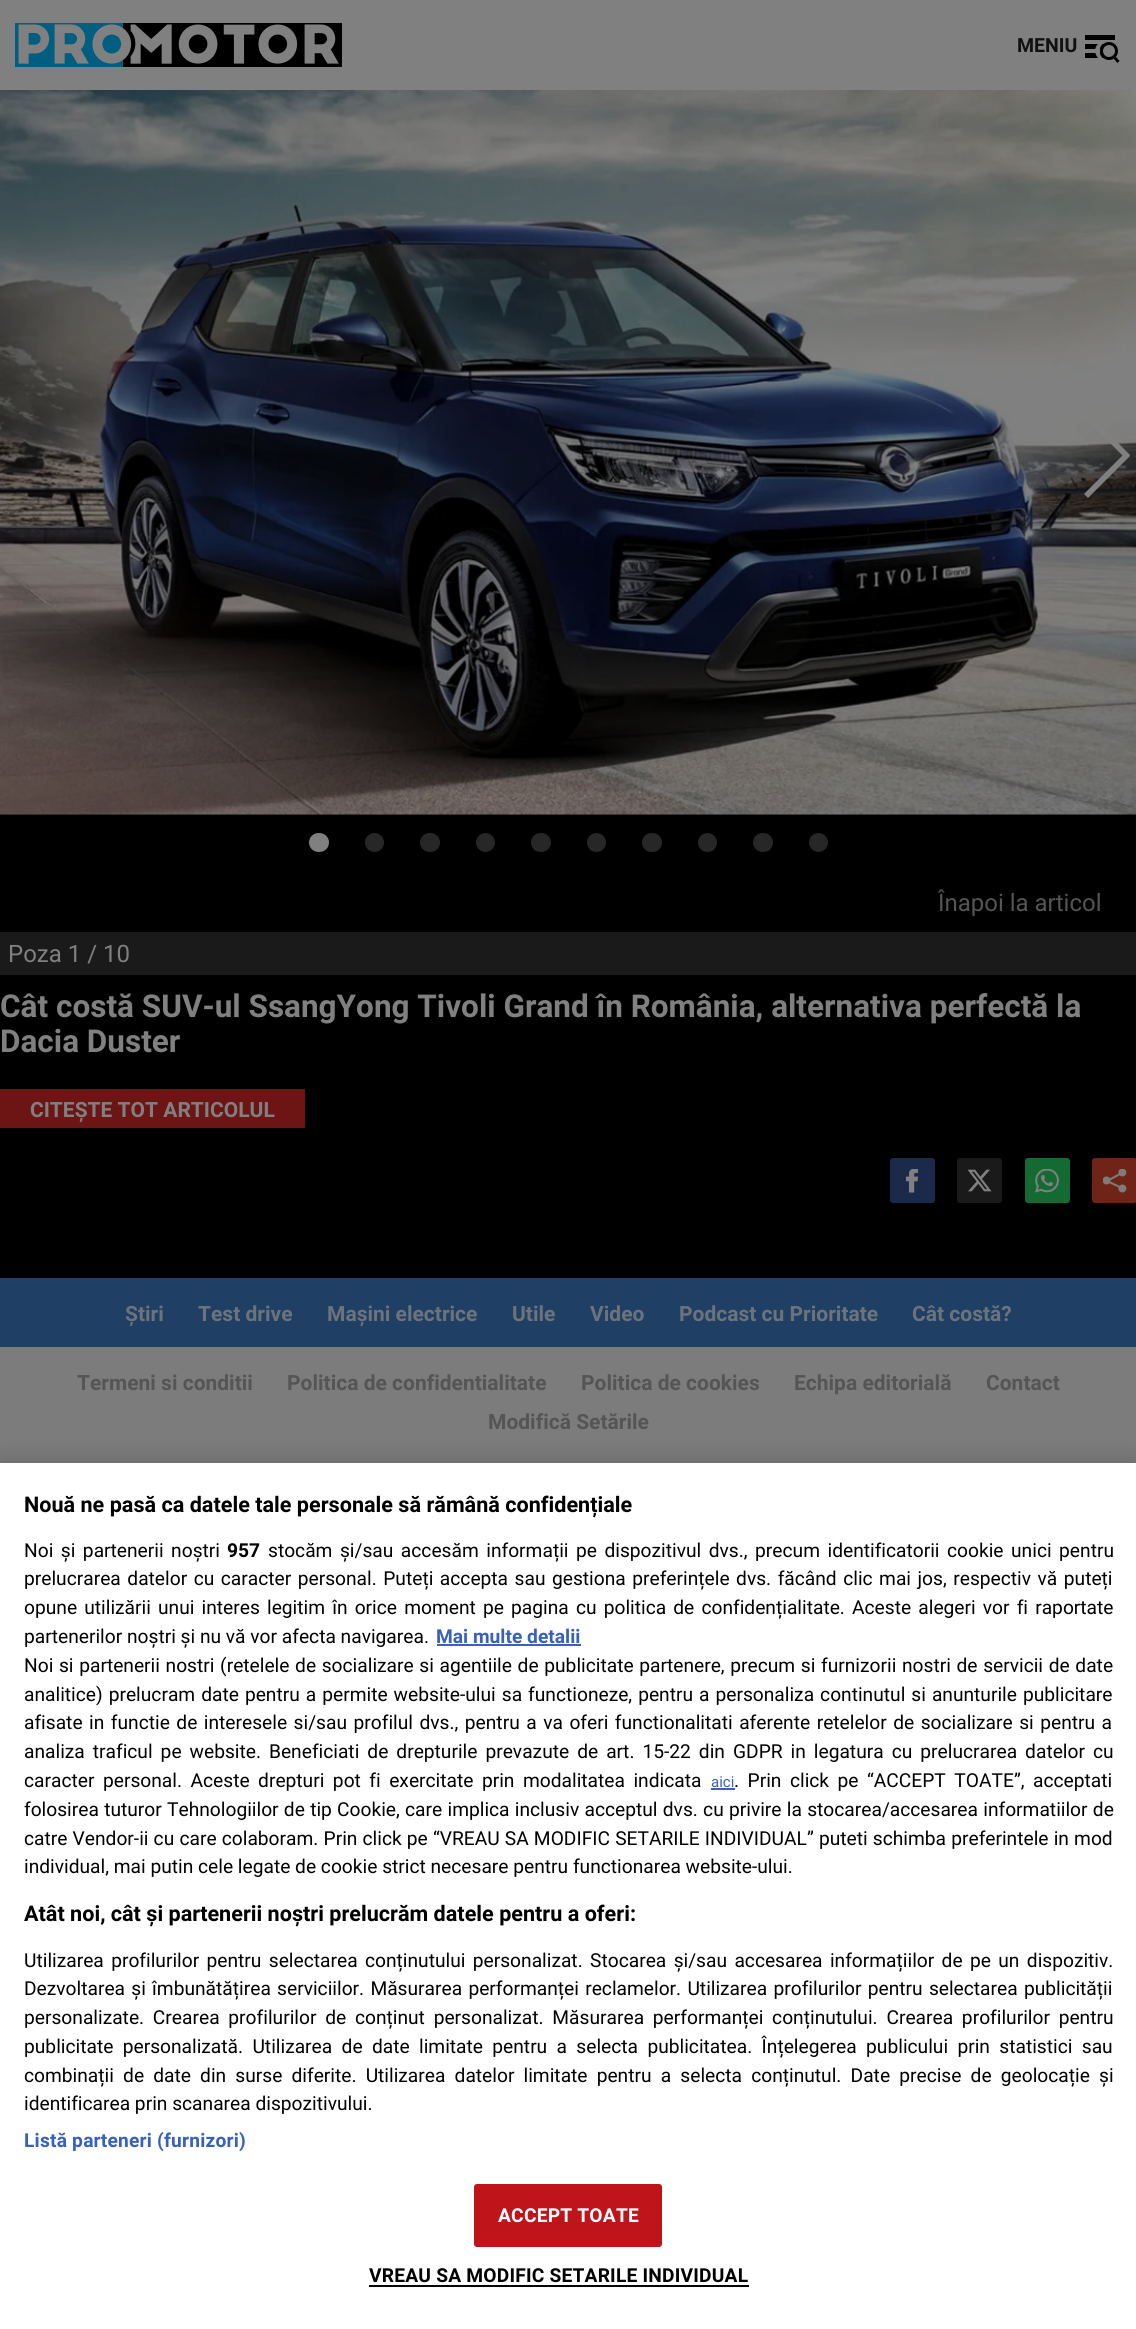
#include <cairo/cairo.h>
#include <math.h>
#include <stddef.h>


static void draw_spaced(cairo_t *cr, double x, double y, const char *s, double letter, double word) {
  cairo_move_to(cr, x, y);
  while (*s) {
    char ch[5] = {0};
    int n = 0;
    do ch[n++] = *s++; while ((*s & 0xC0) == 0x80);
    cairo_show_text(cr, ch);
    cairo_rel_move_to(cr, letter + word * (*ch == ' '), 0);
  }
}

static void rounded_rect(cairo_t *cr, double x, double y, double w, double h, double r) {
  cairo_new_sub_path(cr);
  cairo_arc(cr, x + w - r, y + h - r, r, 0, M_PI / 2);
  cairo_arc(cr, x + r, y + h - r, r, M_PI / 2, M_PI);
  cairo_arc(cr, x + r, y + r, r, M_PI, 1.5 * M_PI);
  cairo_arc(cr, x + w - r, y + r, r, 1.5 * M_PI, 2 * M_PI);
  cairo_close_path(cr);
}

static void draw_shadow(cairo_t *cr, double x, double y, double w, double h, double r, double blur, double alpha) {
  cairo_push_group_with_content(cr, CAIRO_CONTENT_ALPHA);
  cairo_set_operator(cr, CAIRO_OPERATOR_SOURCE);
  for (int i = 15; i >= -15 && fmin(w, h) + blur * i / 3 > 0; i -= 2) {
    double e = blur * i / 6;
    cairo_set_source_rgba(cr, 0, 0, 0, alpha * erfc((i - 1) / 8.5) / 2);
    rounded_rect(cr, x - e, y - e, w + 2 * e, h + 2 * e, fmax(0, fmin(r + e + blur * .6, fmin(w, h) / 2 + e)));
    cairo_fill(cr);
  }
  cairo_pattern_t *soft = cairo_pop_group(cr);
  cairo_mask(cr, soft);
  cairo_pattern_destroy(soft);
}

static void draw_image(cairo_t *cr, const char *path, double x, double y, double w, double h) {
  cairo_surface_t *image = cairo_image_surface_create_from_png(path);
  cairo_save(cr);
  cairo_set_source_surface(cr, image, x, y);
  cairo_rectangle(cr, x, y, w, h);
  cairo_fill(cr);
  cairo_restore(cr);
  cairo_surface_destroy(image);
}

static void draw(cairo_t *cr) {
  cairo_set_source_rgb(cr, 128 / 255.0, 128 / 255.0, 128 / 255.0);
  cairo_paint(cr);
  draw_image(cr, "images/1.png", 15, 23, 327, 44);
  cairo_set_source_rgb(cr, 0, 0, 0);
  cairo_rectangle(cr, 1085, 44, 30, 5);
  cairo_fill(cr);
  cairo_rectangle(cr, 1085, 35, 30, 5);
  cairo_fill(cr);
  cairo_rectangle(cr, 1085, 53, 19, 5);
  cairo_fill(cr);
  cairo_set_source_rgb(cr, 128 / 255.0, 128 / 255.0, 128 / 255.0);
  cairo_new_path(cr);
  cairo_move_to(cr, 1104, 42);
  cairo_curve_to(cr, 1090.5, 42, 1093.5, 63, 1106, 59.5);
  cairo_curve_to(cr, 1097.5, 57.5, 1097.5, 44.5, 1106, 42.5);
  cairo_close_path(cr);
  cairo_fill(cr);
  cairo_arc(cr, 1109, 51, 7.5, 0, 2 * M_PI);
  cairo_fill_preserve(cr);
  cairo_set_source_rgb(cr, 0, 0, 0);
  cairo_set_line_width(cr, 3);
  cairo_stroke(cr);
  cairo_new_path(cr);
  cairo_move_to(cr, 1112.5, 57.5);
  cairo_line_to(cr, 1114.5, 55.5);
  cairo_line_to(cr, 1119.5, 61);
  cairo_line_to(cr, 1117.5, 63);
  cairo_close_path(cr);
  cairo_fill(cr);
  cairo_rectangle(cr, 0, 815, 1136, 463);
  cairo_fill(cr);
  cairo_set_source_rgb(cr, 9 / 255.0, 9 / 255.0, 9 / 255.0);
  cairo_rectangle(cr, 0, 814, 1136, 1);
  cairo_fill(cr);
  draw_image(cr, "images/2.png", 0, 90, 1136, 725);
  cairo_set_source_rgb(cr, 128 / 255.0, 128 / 255.0, 128 / 255.0);
  cairo_new_path(cr);
  cairo_move_to(cr, 1088, 413);
  cairo_line_to(cr, 1130, 455);
  cairo_line_to(cr, 1126, 459);
  cairo_line_to(cr, 1084, 417);
  cairo_close_path(cr);
  cairo_fill(cr);
  cairo_new_path(cr);
  cairo_move_to(cr, 1084, 494);
  cairo_line_to(cr, 1126, 452);
  cairo_line_to(cr, 1130, 456);
  cairo_line_to(cr, 1088, 498);
  cairo_close_path(cr);
  cairo_fill(cr);
  rounded_rect(cr, 309, 833, 20, 19, 9.5);
  cairo_fill(cr);
  cairo_set_source_rgb(cr, 39 / 255.0, 39 / 255.0, 39 / 255.0);
  cairo_arc(cr, 374.5, 842.5, 9.5, 0, 2 * M_PI);
  cairo_fill(cr);
  rounded_rect(cr, 420, 833, 20, 19, 9.5);
  cairo_fill(cr);
  cairo_arc(cr, 485.5, 842.5, 9.5, 0, 2 * M_PI);
  cairo_fill(cr);
  rounded_rect(cr, 531, 833, 20, 19, 9.5);
  cairo_fill(cr);
  cairo_arc(cr, 596.5, 842.5, 9.5, 0, 2 * M_PI);
  cairo_fill(cr);
  rounded_rect(cr, 642, 833, 20, 19, 9.5);
  cairo_fill(cr);
  cairo_arc(cr, 707.5, 842.5, 9.5, 0, 2 * M_PI);
  cairo_fill(cr);
  rounded_rect(cr, 753, 833, 20, 19, 9.5);
  cairo_fill(cr);
  cairo_arc(cr, 818.5, 842.5, 9.5, 0, 2 * M_PI);
  cairo_fill(cr);
  cairo_set_source_rgb(cr, 26 / 255.0, 26 / 255.0, 26 / 255.0);
  cairo_rectangle(cr, 0, 932, 1136, 43);
  cairo_fill(cr);
  cairo_set_source_rgb(cr, 109 / 255.0, 20 / 255.0, 20 / 255.0);
  cairo_rectangle(cr, 0, 1089, 305, 39);
  cairo_fill(cr);
  cairo_set_source_rgb(cr, 27 / 255.0, 41 / 255.0, 75 / 255.0);
  rounded_rect(cr, 890, 1158, 45, 45, 3);
  cairo_fill(cr);
  draw_image(cr, "images/3.png", 905, 1169, 14, 24);
  cairo_set_source_rgb(cr, 26 / 255.0, 26 / 255.0, 26 / 255.0);
  rounded_rect(cr, 957, 1158, 45, 45, 3);
  cairo_fill(cr);
  draw_image(cr, "images/4.png", 968, 1169, 24, 23);
  cairo_set_source_rgb(cr, 19 / 255.0, 106 / 255.0, 51 / 255.0);
  rounded_rect(cr, 1025, 1158, 45, 45, 3);
  cairo_fill(cr);
  draw_image(cr, "images/5.png", 1035, 1169, 24, 24);
  cairo_set_source_rgb(cr, 112 / 255.0, 35 / 255.0, 23 / 255.0);
  rounded_rect(cr, 1092, 1158, 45, 45, 3);
  cairo_fill(cr);
  draw_image(cr, "images/6.png", 1103, 1169, 24, 24);
  cairo_set_source_rgb(cr, 124 / 255.0, 124 / 255.0, 124 / 255.0);
  cairo_rectangle(cr, 0, 1347, 1136, 116);
  cairo_fill(cr);
  cairo_set_source_rgb(cr, 31 / 255.0, 63 / 255.0, 101 / 255.0);
  cairo_rectangle(cr, 0, 1278, 1136, 69);
  cairo_fill(cr);
  cairo_set_source_rgb(cr, 0, 0, 0);
  draw_shadow(cr, 0, 1463, 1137, 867, 0, 13.5, 0.2);
  cairo_set_source_rgb(cr, 1, 1, 1);
  cairo_rectangle(cr, 0, 1463, 1136, 866);
  cairo_fill(cr);
  cairo_set_source_rgb(cr, 56 / 255.0, 96 / 255.0, 190 / 255.0);
  cairo_rectangle(cr, 437, 1644, 144, 2);
  cairo_fill(cr);
  cairo_rectangle(cr, 711, 1788, 24, 2);
  cairo_fill(cr);
  cairo_set_source_rgb(cr, 191 / 255.0, 20 / 255.0, 26 / 255.0);
  rounded_rect(cr, 475, 2185, 186, 61, 2);
  cairo_fill_preserve(cr);
  cairo_set_line_width(cr, 2);
  cairo_stroke(cr);
  cairo_set_source_rgb(cr, 0, 0, 0);
  cairo_rectangle(cr, 369, 2285, 380, 2);
  cairo_fill(cr);
  cairo_select_font_face(cr, "Roboto", CAIRO_FONT_SLANT_NORMAL, CAIRO_FONT_WEIGHT_BOLD);
  cairo_set_font_size(cr, 19.5);
  cairo_set_source_rgb(cr, 17 / 255.0, 17 / 255.0, 17 / 255.0);
  cairo_move_to(cr, 1017, 52);
  cairo_show_text(cr, "MENIU");
  cairo_select_font_face(cr, "Roboto", CAIRO_FONT_SLANT_NORMAL, CAIRO_FONT_WEIGHT_NORMAL);
  cairo_set_font_size(cr, 24);
  cairo_set_source_rgb(cr, 85 / 255.0, 85 / 255.0, 85 / 255.0);
  cairo_move_to(cr, 938, 911);
  cairo_show_text(cr, "Înapoi la articol");
  cairo_set_source_rgb(cr, 128 / 255.0, 128 / 255.0, 128 / 255.0);
  cairo_move_to(cr, 8, 962);
  cairo_show_text(cr, "Poza 1 / 10");
  cairo_select_font_face(cr, "Roboto", CAIRO_FONT_SLANT_NORMAL, CAIRO_FONT_WEIGHT_BOLD);
  cairo_set_font_size(cr, 31.5);
  cairo_move_to(cr, 0, 1017);
  cairo_show_text(cr, "Cât costă SUV-ul SsangYong Tivoli Grand în România, alternativa perfectă la");
  cairo_move_to(cr, 0, 1052);
  cairo_show_text(cr, "Dacia Duster");
  cairo_set_font_size(cr, 21);
  cairo_move_to(cr, 30, 1117);
  cairo_show_text(cr, "CITEȘTE TOT ARTICOLUL");
  cairo_set_source_rgb(cr, 108 / 255.0, 115 / 255.0, 122 / 255.0);
  cairo_move_to(cr, 125, 1321);
  cairo_show_text(cr, "Știri");
  cairo_move_to(cr, 198, 1321);
  cairo_show_text(cr, "Test drive");
  cairo_move_to(cr, 327, 1321);
  cairo_show_text(cr, "Mașini electrice");
  cairo_move_to(cr, 512, 1321);
  cairo_show_text(cr, "Utile");
  cairo_move_to(cr, 590, 1321);
  cairo_show_text(cr, "Video");
  cairo_move_to(cr, 679, 1321);
  cairo_show_text(cr, "Podcast cu Prioritate");
  cairo_move_to(cr, 912, 1321);
  cairo_show_text(cr, "Cât costă?");
  cairo_set_source_rgb(cr, 85 / 255.0, 85 / 255.0, 85 / 255.0);
  cairo_move_to(cr, 77, 1390);
  cairo_show_text(cr, "Termeni si conditii");
  cairo_move_to(cr, 287, 1390);
  cairo_show_text(cr, "Politica de confidentialitate");
  cairo_move_to(cr, 581, 1390);
  cairo_show_text(cr, "Politica de cookies");
  cairo_move_to(cr, 794, 1390);
  cairo_show_text(cr, "Echipa editorială");
  cairo_move_to(cr, 986, 1390);
  cairo_show_text(cr, "Contact");
  cairo_move_to(cr, 488, 1429);
  cairo_show_text(cr, "Modifică Setările");
  cairo_set_font_size(cr, 21.6);
  cairo_set_source_rgb(cr, 0, 0, 0);
  cairo_move_to(cr, 24, 1512);
  cairo_show_text(cr, "Nouă ne pasă ca datele tale personale să rămână confidențiale");
  cairo_select_font_face(cr, "Roboto", CAIRO_FONT_SLANT_NORMAL, CAIRO_FONT_WEIGHT_NORMAL);
  cairo_set_font_size(cr, 19.2);
  draw_spaced(cr, 24, 1557, "Noi și partenerii noștri", 0, 2.75);
  cairo_select_font_face(cr, "Roboto", CAIRO_FONT_SLANT_NORMAL, CAIRO_FONT_WEIGHT_BOLD);
  cairo_move_to(cr, 227, 1557);
  cairo_show_text(cr, "957");
  cairo_select_font_face(cr, "Roboto", CAIRO_FONT_SLANT_NORMAL, CAIRO_FONT_WEIGHT_NORMAL);
  draw_spaced(cr, 268, 1557, "stocăm și/sau accesăm informații pe dispozitivul dvs., precum identificatorii cookie unici pentru", 0, 2.75);
  draw_spaced(cr, 24, 1585, "prelucrarea datelor cu caracter personal. Puteți accepta sau gestiona preferințele dvs. făcând clic mai jos, respectiv vă puteți", 0, 1.75);
  draw_spaced(cr, 24, 1614, "opune utilizării unui interes legitim în orice moment pe pagina cu politica de confidențialitate. Aceste alegeri vor fi raportate", 0, 2.4);
  cairo_move_to(cr, 24, 1643);
  cairo_show_text(cr, "partenerilor noștri și nu vă vor afecta navigarea.");
  cairo_select_font_face(cr, "Roboto", CAIRO_FONT_SLANT_NORMAL, CAIRO_FONT_WEIGHT_BOLD);
  cairo_set_source_rgb(cr, 56 / 255.0, 96 / 255.0, 190 / 255.0);
  cairo_move_to(cr, 436, 1643);
  cairo_show_text(cr, "Mai multe detalii");
  cairo_select_font_face(cr, "Roboto", CAIRO_FONT_SLANT_NORMAL, CAIRO_FONT_WEIGHT_NORMAL);
  cairo_set_source_rgb(cr, 0, 0, 0);
  draw_spaced(cr, 24, 1672, "Noi si partenerii nostri (retelele de socializare si agentiile de publicitate partenere, precum si furnizorii nostri de servicii de date", 0, 0.9);
  draw_spaced(cr, 24, 1701, "analitice) prelucram date pentru a permite website-ului sa functioneze, pentru a personaliza continutul si anunturile publicitare", 0, 1.25);
  draw_spaced(cr, 24, 1729, "afisate in functie de interesele si/sau profilul dvs., pentru a va oferi functionalitati aferente retelelor de socializare si pentru a", 0, 1.75);
  draw_spaced(cr, 24, 1758, "analiza traficul pe website. Beneficiati de drepturile prevazute de art. 15-22 din GDPR in legatura cu prelucrarea datelor cu", 0, 3.25);
  draw_spaced(cr, 24, 1787, "caracter personal. Aceste drepturi pot fi exercitate prin modalitatea indicata", 0, 3.75);
  cairo_set_font_size(cr, 15);
  cairo_set_source_rgb(cr, 56 / 255.0, 96 / 255.0, 190 / 255.0);
  cairo_move_to(cr, 711, 1787);
  cairo_show_text(cr, "aici");
  cairo_set_font_size(cr, 19.2);
  cairo_set_source_rgb(cr, 0, 0, 0);
  draw_spaced(cr, 734, 1787, ". Prin click pe “ACCEPT TOATE”, acceptati", 0, 3.75);
  draw_spaced(cr, 24, 1816, "folosirea tuturor Tehnologiilor de tip Cookie, care implica inclusiv acceptul dvs. cu privire la stocarea/accesarea informatiilor de", 0, 0.5);
  draw_spaced(cr, 24, 1845, "catre Vendor-ii cu care colaboram. Prin click pe “VREAU SA MODIFIC SETARILE INDIVIDUAL” puteti schimba preferintele in mod", 0, 0.4);
  cairo_move_to(cr, 24, 1873);
  cairo_show_text(cr, "individual, mai putin cele legate de cookie strict necesare pentru functionarea website-ului.");
  cairo_select_font_face(cr, "Roboto", CAIRO_FONT_SLANT_NORMAL, CAIRO_FONT_WEIGHT_BOLD);
  cairo_set_font_size(cr, 21.6);
  cairo_move_to(cr, 24, 1921);
  cairo_show_text(cr, "Atât noi, cât și partenerii noștri prelucrăm datele pentru a oferi:");
  cairo_select_font_face(cr, "Roboto", CAIRO_FONT_SLANT_NORMAL, CAIRO_FONT_WEIGHT_NORMAL);
  cairo_set_font_size(cr, 19.2);
  draw_spaced(cr, 24, 1967, "Utilizarea profilurilor pentru selectarea conținutului personalizat. Stocarea și/sau accesarea informațiilor de pe un dispozitiv.", 0, 2.6);
  draw_spaced(cr, 24, 1995, "Dezvoltarea și îmbunătățirea serviciilor. Măsurarea performanței reclamelor. Utilizarea profilurilor pentru selectarea publicității", 0, 1.5);
  draw_spaced(cr, 24, 2024, "personalizate. Crearea profilurilor de conținut personalizat. Măsurarea performanței conținutului. Crearea profilurilor pentru", 0, 4);
  draw_spaced(cr, 24, 2053, "publicitate personalizată. Utilizarea de date limitate pentru a selecta publicitatea. Înțelegerea publicului prin statistici sau", 0, 4.6);
  draw_spaced(cr, 24, 2082, "combinații de date din surse diferite. Utilizarea datelor limitate pentru a selecta conținutul. Date precise de geolocație și", 0, 4.4);
  cairo_move_to(cr, 24, 2110);
  cairo_show_text(cr, "identificarea prin scanarea dispozitivului.");
  cairo_select_font_face(cr, "Roboto", CAIRO_FONT_SLANT_NORMAL, CAIRO_FONT_WEIGHT_BOLD);
  cairo_set_source_rgb(cr, 56 / 255.0, 96 / 255.0, 190 / 255.0);
  draw_spaced(cr, 24, 2147, "Listă parteneri (furnizori)", 0.2, 0);
  cairo_set_source_rgb(cr, 1, 1, 1);
  draw_spaced(cr, 498, 2222, "ACCEPT TOATE", 0.2, 0);
  cairo_set_source_rgb(cr, 0, 0, 0);
  draw_spaced(cr, 369, 2282, "VREAU SA MODIFIC SETARILE INDIVIDUAL", 0.2, 0);
}

int main(void) {
  cairo_surface_t *surface = cairo_image_surface_create(CAIRO_FORMAT_RGB24, 1136, 2329);
  cairo_t *cr = cairo_create(surface);
  cairo_font_options_t *options = cairo_font_options_create();
  cairo_font_options_set_hint_metrics(options, CAIRO_HINT_METRICS_OFF);
  cairo_font_options_set_hint_style(options, CAIRO_HINT_STYLE_NONE);
  cairo_set_font_options(cr, options);
  cairo_set_miter_limit(cr, 4);
  draw(cr);
  cairo_surface_write_to_png(surface, "out.png");
  cairo_font_options_destroy(options);
  cairo_destroy(cr);
  cairo_surface_destroy(surface);
  return 0;
}
